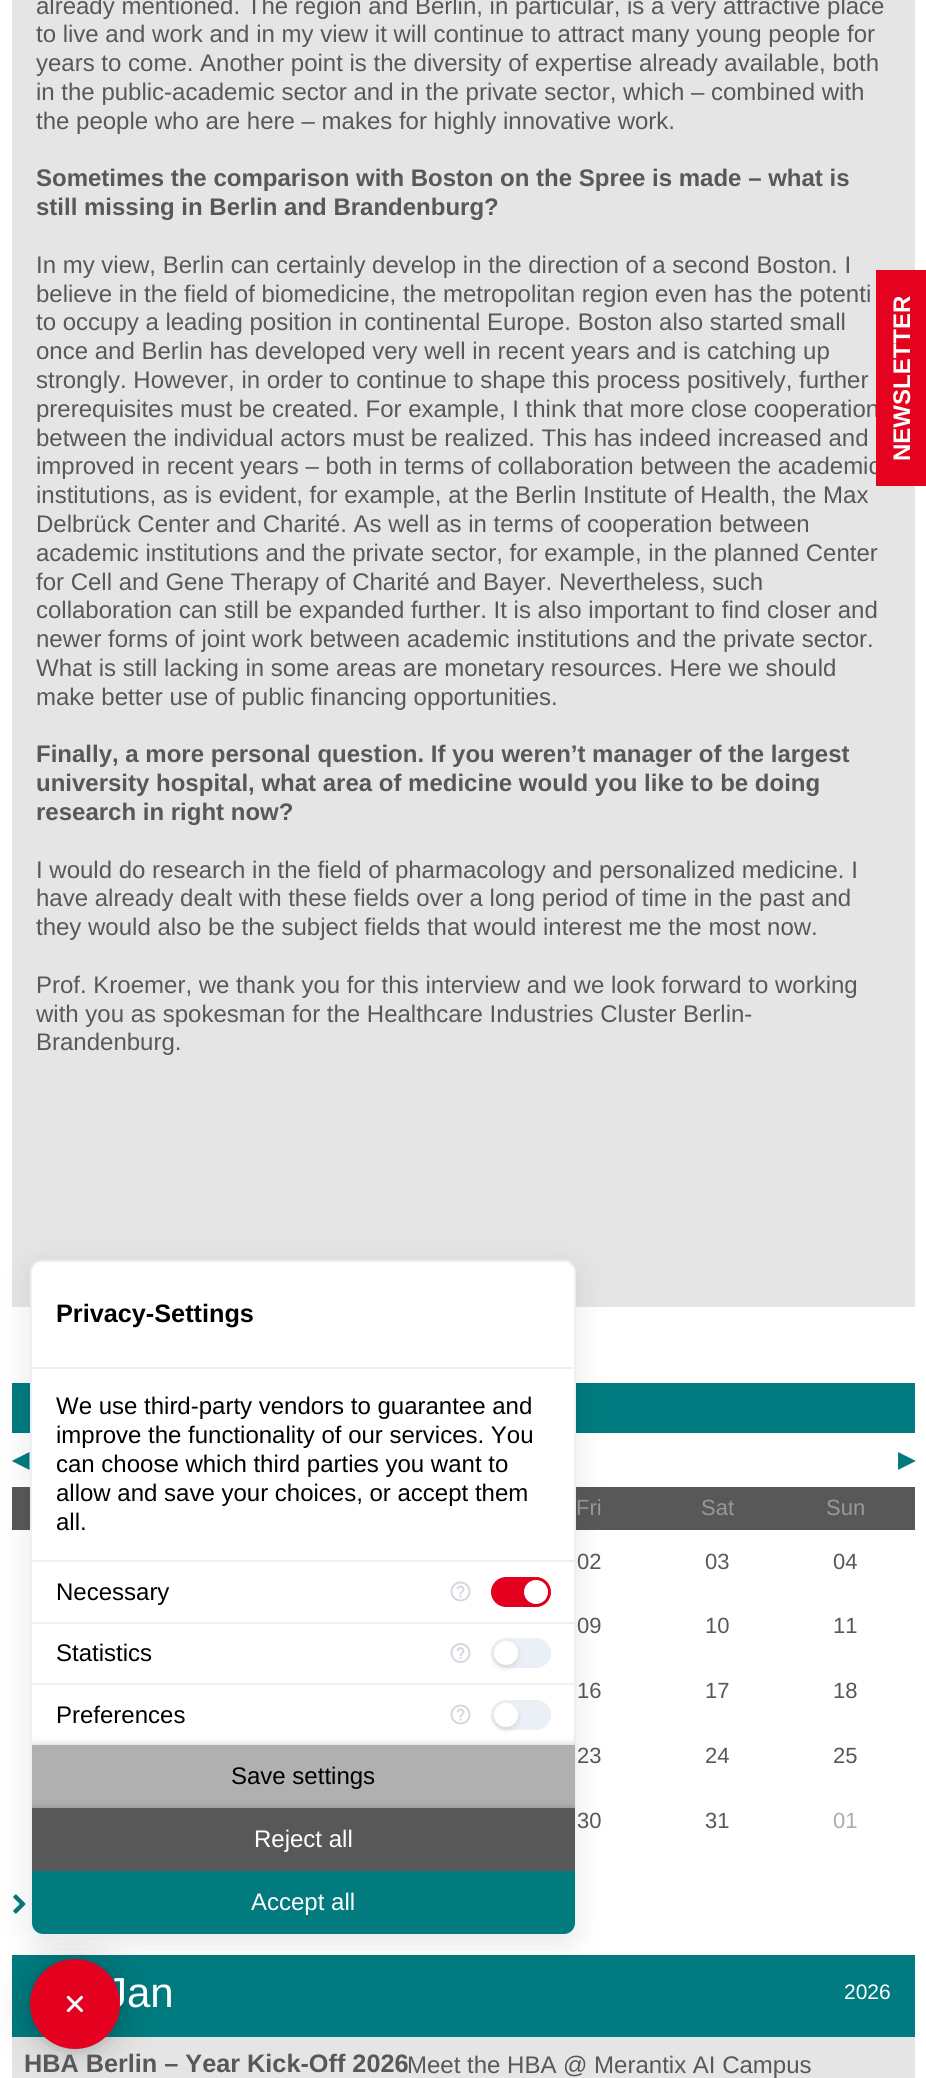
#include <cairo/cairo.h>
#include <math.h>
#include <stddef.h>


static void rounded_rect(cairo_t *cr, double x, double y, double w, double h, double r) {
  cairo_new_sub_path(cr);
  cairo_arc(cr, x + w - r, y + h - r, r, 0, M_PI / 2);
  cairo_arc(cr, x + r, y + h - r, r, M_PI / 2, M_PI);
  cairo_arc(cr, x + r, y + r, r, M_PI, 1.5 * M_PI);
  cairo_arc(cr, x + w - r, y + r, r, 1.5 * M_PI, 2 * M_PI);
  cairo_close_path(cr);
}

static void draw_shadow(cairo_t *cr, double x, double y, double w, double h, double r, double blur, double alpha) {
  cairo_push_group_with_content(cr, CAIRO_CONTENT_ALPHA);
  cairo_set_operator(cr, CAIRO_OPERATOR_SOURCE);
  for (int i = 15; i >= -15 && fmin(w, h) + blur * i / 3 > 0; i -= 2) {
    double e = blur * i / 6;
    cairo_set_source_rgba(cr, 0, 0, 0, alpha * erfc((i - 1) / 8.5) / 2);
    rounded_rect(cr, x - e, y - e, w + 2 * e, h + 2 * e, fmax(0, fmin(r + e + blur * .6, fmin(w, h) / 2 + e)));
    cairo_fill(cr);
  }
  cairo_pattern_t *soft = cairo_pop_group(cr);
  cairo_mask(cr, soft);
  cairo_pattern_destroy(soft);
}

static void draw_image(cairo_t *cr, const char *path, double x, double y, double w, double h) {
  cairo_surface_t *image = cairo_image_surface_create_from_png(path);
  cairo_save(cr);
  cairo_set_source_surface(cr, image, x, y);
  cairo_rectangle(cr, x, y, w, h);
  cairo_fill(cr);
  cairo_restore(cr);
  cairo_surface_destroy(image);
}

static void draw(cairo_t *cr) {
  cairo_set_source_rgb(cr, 1, 1, 1);
  cairo_paint(cr);
  cairo_set_source_rgb(cr, 229 / 255.0, 229 / 255.0, 229 / 255.0);
  cairo_rectangle(cr, 12, 0, 903, 1307);
  cairo_fill(cr);
  cairo_set_source_rgb(cr, 0, 123 / 255.0, 127 / 255.0);
  cairo_rectangle(cr, 12, 1383, 903, 50);
  cairo_fill(cr);
  cairo_set_source_rgb(cr, 89 / 255.0, 88 / 255.0, 88 / 255.0);
  cairo_rectangle(cr, 12, 1487, 903, 43);
  cairo_fill(cr);
  draw_image(cr, "images/1.png", 13, 1894, 13, 20);
  cairo_set_source_rgb(cr, 229 / 255.0, 229 / 255.0, 229 / 255.0);
  cairo_rectangle(cr, 12, 2037, 903, 41);
  cairo_fill(cr);
  cairo_set_source_rgb(cr, 0, 123 / 255.0, 127 / 255.0);
  cairo_rectangle(cr, 12, 1955, 903, 82);
  cairo_fill(cr);
  cairo_set_source_rgb(cr, 0, 0, 0);
  draw_shadow(cr, 30, 1962, 90, 90, 45, 18, 0.2);
  draw_shadow(cr, 30, 1961, 90, 90, 45, 4.5, 0.1);
  cairo_select_font_face(cr, "Liberation Sans", CAIRO_FONT_SLANT_NORMAL, CAIRO_FONT_WEIGHT_NORMAL);
  cairo_set_font_size(cr, 24);
  cairo_set_source_rgb(cr, 89 / 255.0, 88 / 255.0, 88 / 255.0);
  cairo_move_to(cr, 36, 14);
  cairo_show_text(cr, "already mentioned. The region and Berlin, in particular, is a very attractive place");
  cairo_move_to(cr, 36, 42);
  cairo_show_text(cr, "to live and work and in my view it will continue to attract many young people for");
  cairo_move_to(cr, 36, 71);
  cairo_show_text(cr, "years to come. Another point is the diversity of expertise already available, both");
  cairo_move_to(cr, 36, 100);
  cairo_show_text(cr, "in the public-academic sector and in the private sector, which – combined with");
  cairo_move_to(cr, 36, 129);
  cairo_show_text(cr, "the people who are here – makes for highly innovative work.");
  cairo_select_font_face(cr, "Liberation Sans", CAIRO_FONT_SLANT_NORMAL, CAIRO_FONT_WEIGHT_BOLD);
  cairo_move_to(cr, 36, 186);
  cairo_show_text(cr, "Sometimes the comparison with Boston on the Spree is made – what is");
  cairo_move_to(cr, 36, 215);
  cairo_show_text(cr, "still missing in Berlin and Brandenburg?");
  cairo_select_font_face(cr, "Liberation Sans", CAIRO_FONT_SLANT_NORMAL, CAIRO_FONT_WEIGHT_NORMAL);
  cairo_move_to(cr, 36, 273);
  cairo_show_text(cr, "In my view, Berlin can certainly develop in the direction of a second Boston. I");
  cairo_move_to(cr, 36, 302);
  cairo_show_text(cr, "believe in the field of biomedicine, the metropolitan region even has the potenti");
  cairo_move_to(cr, 36, 330);
  cairo_show_text(cr, "to occupy a leading position in continental Europe. Boston also started small");
  cairo_move_to(cr, 36, 359);
  cairo_show_text(cr, "once and Berlin has developed very well in recent years and is catching up");
  cairo_move_to(cr, 36, 388);
  cairo_show_text(cr, "strongly. However, in order to continue to shape this process positively, further");
  cairo_move_to(cr, 36, 417);
  cairo_show_text(cr, "prerequisites must be created. For example, I think that more close cooperation");
  cairo_move_to(cr, 36, 446);
  cairo_show_text(cr, "between the individual actors must be realized. This has indeed increased and");
  cairo_move_to(cr, 36, 474);
  cairo_show_text(cr, "improved in recent years – both in terms of collaboration between the academic");
  cairo_move_to(cr, 36, 503);
  cairo_show_text(cr, "institutions, as is evident, for example, at the Berlin Institute of Health, the Max");
  cairo_move_to(cr, 36, 532);
  cairo_show_text(cr, "Delbrück Center and Charité. As well as in terms of cooperation between");
  cairo_move_to(cr, 36, 561);
  cairo_show_text(cr, "academic institutions and the private sector, for example, in the planned Center");
  cairo_move_to(cr, 36, 590);
  cairo_show_text(cr, "for Cell and Gene Therapy of Charité and Bayer. Nevertheless, such");
  cairo_move_to(cr, 36, 618);
  cairo_show_text(cr, "collaboration can still be expanded further. It is also important to find closer and");
  cairo_move_to(cr, 36, 647);
  cairo_show_text(cr, "newer forms of joint work between academic institutions and the private sector.");
  cairo_move_to(cr, 36, 676);
  cairo_show_text(cr, "What is still lacking in some areas are monetary resources. Here we should");
  cairo_move_to(cr, 36, 705);
  cairo_show_text(cr, "make better use of public financing opportunities.");
  cairo_select_font_face(cr, "Liberation Sans", CAIRO_FONT_SLANT_NORMAL, CAIRO_FONT_WEIGHT_BOLD);
  cairo_move_to(cr, 36, 762);
  cairo_show_text(cr, "Finally, a more personal question. If you weren’t manager of the largest");
  cairo_move_to(cr, 36, 791);
  cairo_show_text(cr, "university hospital, what area of medicine would you like to be doing");
  cairo_move_to(cr, 36, 820);
  cairo_show_text(cr, "research in right now?");
  cairo_select_font_face(cr, "Liberation Sans", CAIRO_FONT_SLANT_NORMAL, CAIRO_FONT_WEIGHT_NORMAL);
  cairo_move_to(cr, 36, 878);
  cairo_show_text(cr, "I would do research in the field of pharmacology and personalized medicine. I");
  cairo_move_to(cr, 36, 906);
  cairo_show_text(cr, "have already dealt with these fields over a long period of time in the past and");
  cairo_move_to(cr, 36, 935);
  cairo_show_text(cr, "they would also be the subject fields that would interest me the most now.");
  cairo_move_to(cr, 36, 993);
  cairo_show_text(cr, "Prof. Kroemer, we thank you for this interview and we look forward to working");
  cairo_move_to(cr, 36, 1022);
  cairo_show_text(cr, "with you as spokesman for the Healthcare Industries Cluster Berlin-");
  cairo_move_to(cr, 36, 1050);
  cairo_show_text(cr, "Brandenburg.");
  cairo_select_font_face(cr, "DejaVu Sans", CAIRO_FONT_SLANT_NORMAL, CAIRO_FONT_WEIGHT_BOLD);
  cairo_set_font_size(cr, 22);
  cairo_set_source_rgb(cr, 0, 123 / 255.0, 127 / 255.0);
  cairo_move_to(cr, 12, 1467);
  cairo_show_text(cr, "◀");
  cairo_move_to(cr, 898, 1467);
  cairo_show_text(cr, "▶");
  cairo_select_font_face(cr, "Liberation Sans", CAIRO_FONT_SLANT_NORMAL, CAIRO_FONT_WEIGHT_NORMAL);
  cairo_set_source_rgb(cr, 153 / 255.0, 152 / 255.0, 152 / 255.0);
  cairo_move_to(cr, 576, 1515);
  cairo_show_text(cr, "Fri");
  cairo_move_to(cr, 701, 1515);
  cairo_show_text(cr, "Sat");
  cairo_move_to(cr, 826, 1515);
  cairo_show_text(cr, "Sun");
  cairo_set_source_rgb(cr, 89 / 255.0, 88 / 255.0, 88 / 255.0);
  cairo_move_to(cr, 577, 1569);
  cairo_show_text(cr, "02");
  cairo_move_to(cr, 705, 1569);
  cairo_show_text(cr, "03");
  cairo_move_to(cr, 833, 1569);
  cairo_show_text(cr, "04");
  cairo_move_to(cr, 577, 1633);
  cairo_show_text(cr, "09");
  cairo_move_to(cr, 705, 1633);
  cairo_show_text(cr, "10");
  cairo_move_to(cr, 833, 1633);
  cairo_show_text(cr, "11");
  cairo_move_to(cr, 577, 1698);
  cairo_show_text(cr, "16");
  cairo_move_to(cr, 705, 1698);
  cairo_show_text(cr, "17");
  cairo_move_to(cr, 833, 1698);
  cairo_show_text(cr, "18");
  cairo_move_to(cr, 577, 1763);
  cairo_show_text(cr, "23");
  cairo_move_to(cr, 705, 1763);
  cairo_show_text(cr, "24");
  cairo_move_to(cr, 833, 1763);
  cairo_show_text(cr, "25");
  cairo_move_to(cr, 577, 1828);
  cairo_show_text(cr, "30");
  cairo_move_to(cr, 705, 1828);
  cairo_show_text(cr, "31");
  cairo_set_source_rgb(cr, 172 / 255.0, 172 / 255.0, 172 / 255.0);
  cairo_move_to(cr, 833, 1828);
  cairo_show_text(cr, "01");
  cairo_set_font_size(cr, 42);
  cairo_set_source_rgb(cr, 1, 1, 1);
  cairo_move_to(cr, 106, 2007);
  cairo_show_text(cr, "Jan");
  cairo_set_font_size(cr, 21);
  cairo_move_to(cr, 844, 1999);
  cairo_show_text(cr, "2026");
  cairo_select_font_face(cr, "Liberation Sans", CAIRO_FONT_SLANT_NORMAL, CAIRO_FONT_WEIGHT_BOLD);
  cairo_set_font_size(cr, 25.25);
  cairo_set_source_rgb(cr, 89 / 255.0, 88 / 255.0, 88 / 255.0);
  cairo_move_to(cr, 24, 2072);
  cairo_show_text(cr, "HBA Berlin – Year Kick-Off 2026");
  cairo_select_font_face(cr, "Liberation Sans", CAIRO_FONT_SLANT_NORMAL, CAIRO_FONT_WEIGHT_NORMAL);
  cairo_set_font_size(cr, 24);
  cairo_move_to(cr, 407, 2073);
  cairo_show_text(cr, "Meet the HBA @ Merantix AI Campus");
  cairo_set_source_rgb(cr, 228 / 255.0, 2 / 255.0, 31 / 255.0);
  cairo_rectangle(cr, 876, 270, 50, 216);
  cairo_fill(cr);
  cairo_select_font_face(cr, "Liberation Sans", CAIRO_FONT_SLANT_NORMAL, CAIRO_FONT_WEIGHT_BOLD);
  cairo_set_source_rgb(cr, 1, 1, 1);
  cairo_save(cr);
  cairo_translate(cr, 910, 461);
  cairo_rotate(cr, -90 * M_PI / 180);
  cairo_move_to(cr, 0, 0);
  cairo_show_text(cr, "NEWSLETTER");
  cairo_restore(cr);
  cairo_set_source_rgb(cr, 228 / 255.0, 0, 31 / 255.0);
  cairo_new_path(cr);
  cairo_arc(cr, 75, 2004, 45, 0, 2 * M_PI);
  cairo_fill(cr);
  cairo_set_source_rgb(cr, 0, 0, 0);
  draw_shadow(cr, 30, 1268, 546, 675, 12, 15, 0.1);
  cairo_set_source_rgb(cr, 1, 1, 1);
  rounded_rect(cr, 31, 1261, 544, 673, 11);
  cairo_fill_preserve(cr);
  cairo_set_source_rgb(cr, 234 / 255.0, 240 / 255.0, 246 / 255.0);
  cairo_stroke(cr);
  cairo_save(cr);
  rounded_rect(cr, 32, 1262, 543, 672, 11);
  cairo_clip(cr);
  cairo_set_source_rgb(cr, 32 / 255.0, 33 / 255.0, 36 / 255.0);
  draw_shadow(cr, 32, 1746, 543, 63, 0, 4.5, 0.28);
  cairo_restore(cr);
  cairo_set_source_rgb(cr, 176 / 255.0, 176 / 255.0, 176 / 255.0);
  cairo_rectangle(cr, 32, 1745, 543, 63);
  cairo_fill(cr);
  cairo_save(cr);
  rounded_rect(cr, 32, 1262, 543, 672, 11);
  cairo_clip(cr);
  cairo_set_source_rgb(cr, 32 / 255.0, 33 / 255.0, 36 / 255.0);
  draw_shadow(cr, 32, 1809, 543, 63, 0, 4.5, 0.28);
  cairo_restore(cr);
  cairo_set_source_rgb(cr, 2 / 255.0, 123 / 255.0, 127 / 255.0);
  cairo_new_path(cr);
  cairo_move_to(cr, 32, 1871);
  cairo_line_to(cr, 575, 1871);
  cairo_line_to(cr, 575, 1923);
  cairo_curve_to(cr, 575, 1929, 570, 1934, 564, 1934);
  cairo_line_to(cr, 43, 1934);
  cairo_curve_to(cr, 37, 1934, 32, 1929, 32, 1923);
  cairo_close_path(cr);
  cairo_fill(cr);
  cairo_select_font_face(cr, "Liberation Sans", CAIRO_FONT_SLANT_NORMAL, CAIRO_FONT_WEIGHT_NORMAL);
  cairo_set_source_rgb(cr, 1, 1, 1);
  cairo_move_to(cr, 251, 1910);
  cairo_show_text(cr, "Accept all");
  cairo_set_source_rgb(cr, 88 / 255.0, 88 / 255.0, 88 / 255.0);
  cairo_rectangle(cr, 32, 1808, 543, 63);
  cairo_fill(cr);
  cairo_set_source_rgb(cr, 1, 1, 1);
  cairo_move_to(cr, 254, 1847);
  cairo_show_text(cr, "Reject all");
  cairo_set_source_rgb(cr, 0, 0, 0);
  cairo_move_to(cr, 231, 1784);
  cairo_show_text(cr, "Save settings");
  cairo_set_source_rgb(cr, 234 / 255.0, 240 / 255.0, 246 / 255.0);
  rounded_rect(cr, 491, 1700, 60, 30, 15);
  cairo_fill(cr);
  cairo_set_source_rgb(cr, 0, 0, 0);
  draw_shadow(cr, 494, 1706, 24, 24, 12, 3, 0.1);
  cairo_set_source_rgb(cr, 1, 1, 1);
  cairo_arc(cr, 506, 1715, 12, 0, 2 * M_PI);
  cairo_fill(cr);
  cairo_set_source_rgb(cr, 234 / 255.0, 240 / 255.0, 246 / 255.0);
  rounded_rect(cr, 491, 1638, 60, 30, 15);
  cairo_fill(cr);
  cairo_set_source_rgb(cr, 0, 0, 0);
  draw_shadow(cr, 494, 1644, 24, 24, 12, 3, 0.1);
  cairo_set_source_rgb(cr, 1, 1, 1);
  cairo_arc(cr, 506, 1653, 12, 0, 2 * M_PI);
  cairo_fill(cr);
  cairo_set_source_rgb(cr, 228 / 255.0, 0, 31 / 255.0);
  rounded_rect(cr, 491, 1577, 60, 30, 15);
  cairo_fill(cr);
  cairo_set_source_rgb(cr, 0, 0, 0);
  draw_shadow(cr, 524, 1583, 24, 24, 12, 3, 0.1);
  cairo_set_source_rgb(cr, 1, 1, 1);
  cairo_arc(cr, 536, 1592, 12, 0, 2 * M_PI);
  cairo_fill(cr);
  draw_image(cr, "images/2.png", 450, 1704, 21, 21);
  draw_image(cr, "images/3.png", 450, 1643, 21, 20);
  draw_image(cr, "images/2.png", 450, 1581, 21, 21);
  cairo_set_source_rgb(cr, 0, 0, 0);
  cairo_move_to(cr, 56, 1723);
  cairo_show_text(cr, "Preferences");
  cairo_move_to(cr, 56, 1661);
  cairo_show_text(cr, "Statistics");
  cairo_move_to(cr, 56, 1600);
  cairo_show_text(cr, "Necessary");
  cairo_move_to(cr, 56, 1530);
  cairo_show_text(cr, "all.");
  cairo_move_to(cr, 56, 1501);
  cairo_show_text(cr, "allow and save your choices, or accept them");
  cairo_move_to(cr, 56, 1472);
  cairo_show_text(cr, "can choose which third parties you want to");
  cairo_move_to(cr, 56, 1443);
  cairo_show_text(cr, "improve the functionality of our services. You");
  cairo_move_to(cr, 56, 1414);
  cairo_show_text(cr, "We use third-party vendors to guarantee and");
  cairo_select_font_face(cr, "Liberation Sans", CAIRO_FONT_SLANT_NORMAL, CAIRO_FONT_WEIGHT_BOLD);
  cairo_set_font_size(cr, 25.25);
  cairo_move_to(cr, 56, 1322);
  cairo_show_text(cr, "Privacy-Settings");
  cairo_set_source_rgb(cr, 234 / 255.0, 240 / 255.0, 246 / 255.0);
  cairo_rectangle(cr, 32, 1683, 543, 2);
  cairo_fill(cr);
  cairo_rectangle(cr, 32, 1622, 543, 2);
  cairo_fill(cr);
  cairo_rectangle(cr, 32, 1560, 543, 2);
  cairo_fill(cr);
  cairo_rectangle(cr, 32, 1367, 543, 2);
  cairo_fill(cr);
  draw_image(cr, "images/4.png", 66, 1995, 17, 18);
}

int main(void) {
  cairo_surface_t *surface = cairo_image_surface_create(CAIRO_FORMAT_RGB24, 926, 2078);
  cairo_t *cr = cairo_create(surface);
  cairo_font_options_t *options = cairo_font_options_create();
  cairo_font_options_set_hint_metrics(options, CAIRO_HINT_METRICS_OFF);
  cairo_font_options_set_hint_style(options, CAIRO_HINT_STYLE_NONE);
  cairo_set_font_options(cr, options);
  cairo_set_miter_limit(cr, 4);
  draw(cr);
  cairo_surface_write_to_png(surface, "out.png");
  cairo_font_options_destroy(options);
  cairo_destroy(cr);
  cairo_surface_destroy(surface);
  return 0;
}
